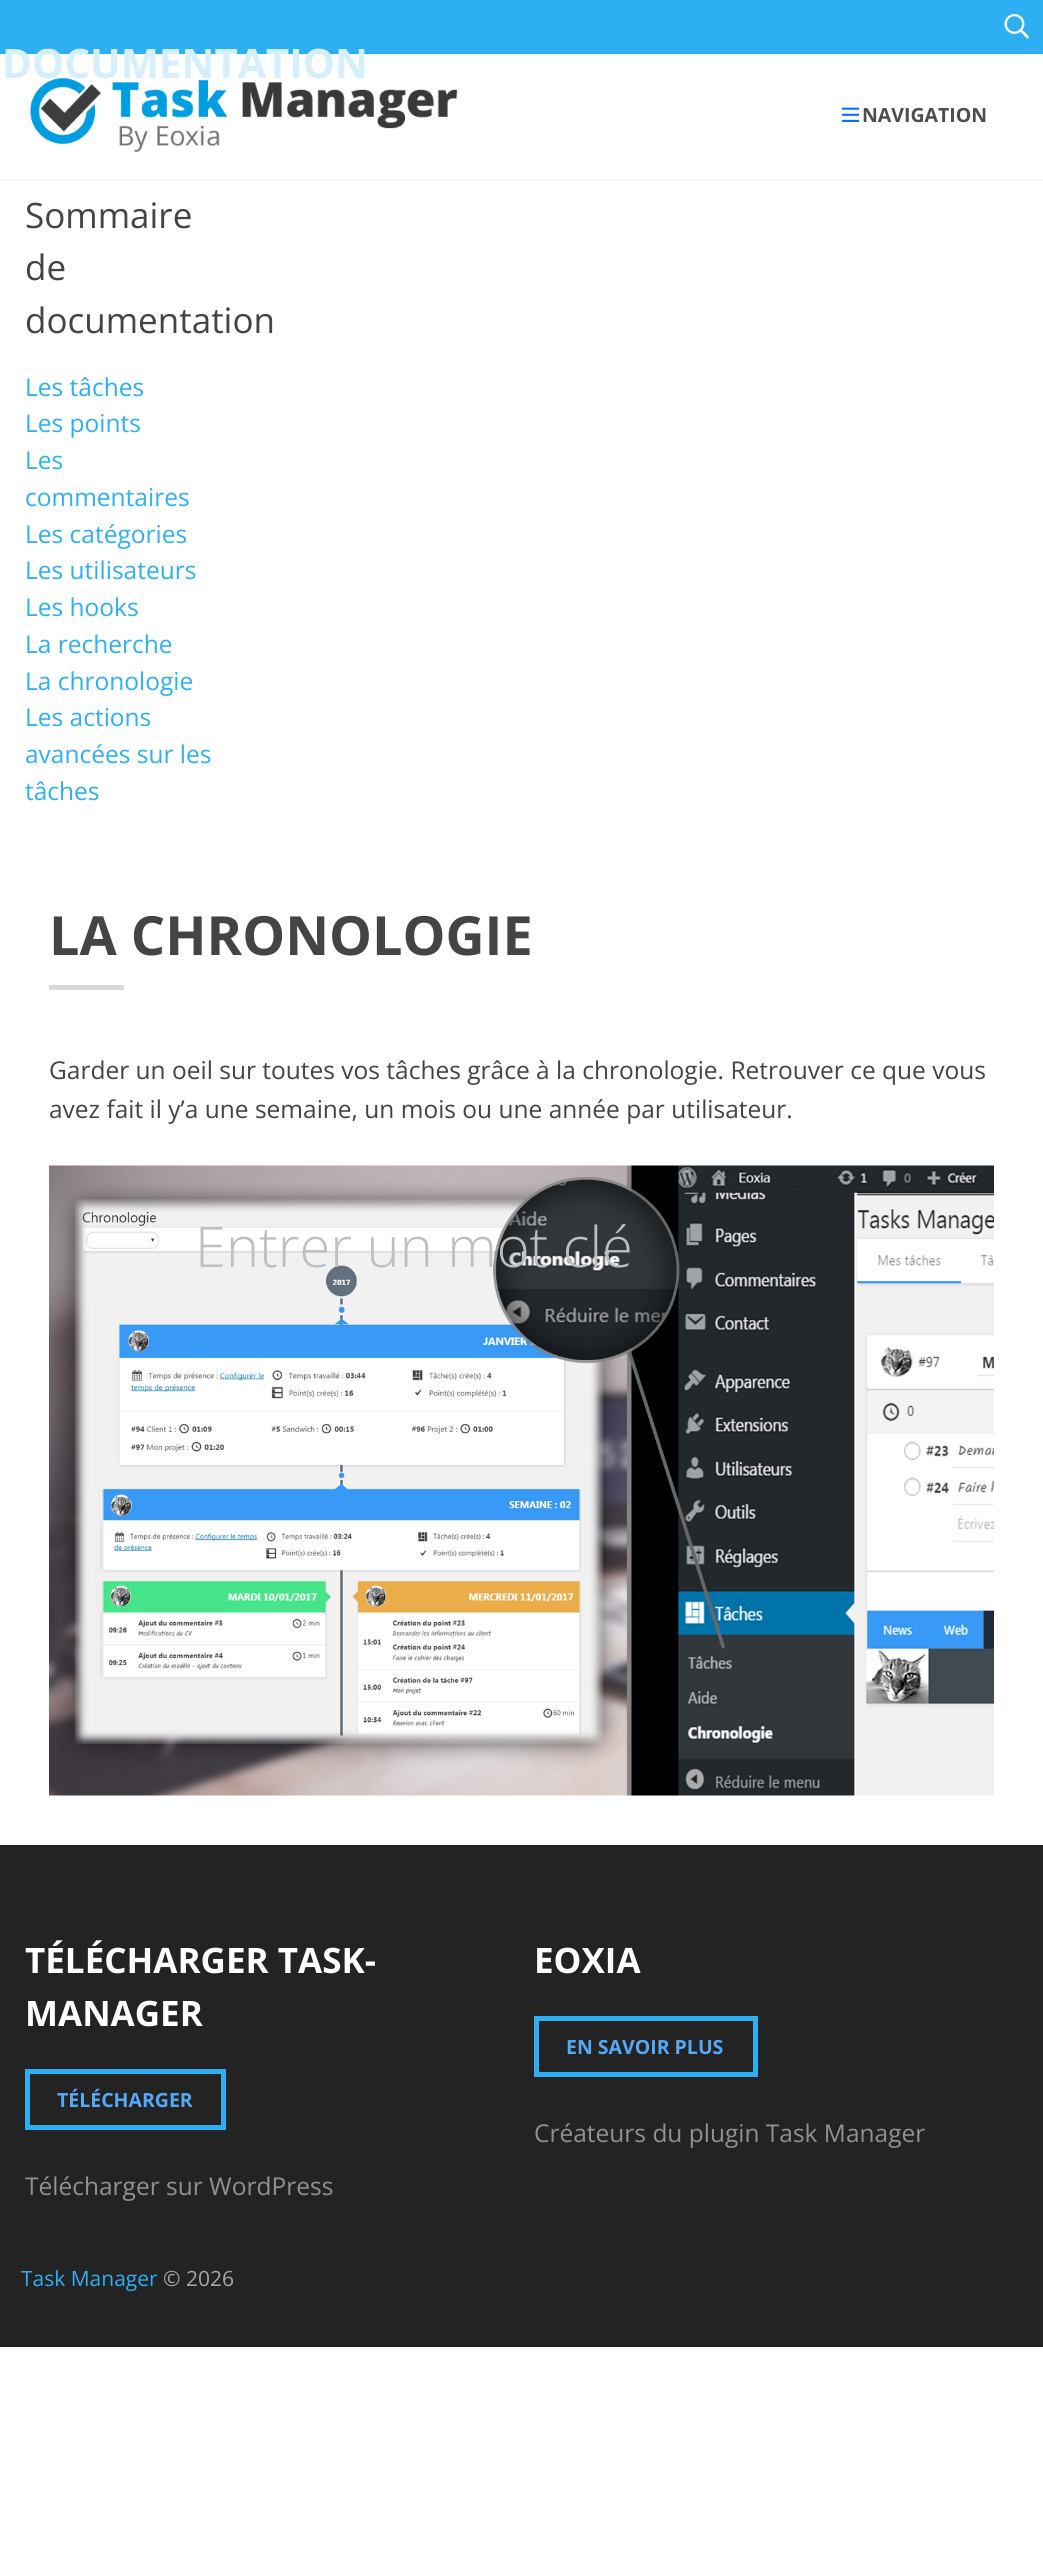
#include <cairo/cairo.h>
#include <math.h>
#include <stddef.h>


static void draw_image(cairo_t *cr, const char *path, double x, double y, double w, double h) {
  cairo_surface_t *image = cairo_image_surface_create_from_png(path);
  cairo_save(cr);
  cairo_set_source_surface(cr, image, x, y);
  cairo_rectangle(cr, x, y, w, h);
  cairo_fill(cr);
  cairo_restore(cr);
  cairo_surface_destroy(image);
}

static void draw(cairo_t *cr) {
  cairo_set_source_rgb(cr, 1, 1, 1);
  cairo_paint(cr);
  cairo_set_source_rgb(cr, 247 / 255.0, 247 / 255.0, 247 / 255.0);
  cairo_rectangle(cr, 0, 179, 1043, 2);
  cairo_fill(cr);
  cairo_set_source_rgb(cr, 45 / 255.0, 175 / 255.0, 242 / 255.0);
  cairo_rectangle(cr, 0, 0, 1043, 54);
  cairo_fill(cr);
  draw_image(cr, "images/1.png", 1004, 14, 25, 25);
  draw_image(cr, "images/2.png", 30, 78, 428, 74);
  draw_image(cr, "images/3.png", 841, 107, 19, 15);
  cairo_set_source_rgb(cr, 217 / 255.0, 217 / 255.0, 217 / 255.0);
  cairo_rectangle(cr, 49, 985, 75, 5);
  cairo_fill(cr);
  draw_image(cr, "images/4.png", 49, 1165, 945, 631);
  cairo_set_source_rgb(cr, 35 / 255.0, 35 / 255.0, 35 / 255.0);
  cairo_rectangle(cr, 0, 1845, 1043, 502);
  cairo_fill(cr);
  cairo_rectangle(cr, 27.5, 2071.5, 196, 56);
  cairo_set_source_rgb(cr, 45 / 255.0, 175 / 255.0, 242 / 255.0);
  cairo_set_line_width(cr, 5);
  cairo_stroke(cr);
  cairo_rectangle(cr, 536.5, 2018.5, 219, 56);
  cairo_stroke(cr);
  cairo_select_font_face(cr, "Open Sans", CAIRO_FONT_SLANT_NORMAL, CAIRO_FONT_WEIGHT_BOLD);
  cairo_set_font_size(cr, 40.5);
  cairo_set_source_rgb(cr, 213 / 255.0, 239 / 255.0, 252 / 255.0);
  cairo_move_to(cr, 2, 78);
  cairo_show_text(cr, "DOCUMENTATION");
  cairo_set_font_size(cr, 19.5);
  cairo_set_source_rgb(cr, 77 / 255.0, 77 / 255.0, 77 / 255.0);
  cairo_move_to(cr, 862, 122);
  cairo_show_text(cr, "NAVIGATION");
  cairo_select_font_face(cr, "Open Sans", CAIRO_FONT_SLANT_NORMAL, CAIRO_FONT_WEIGHT_NORMAL);
  cairo_set_font_size(cr, 35);
  cairo_set_source_rgb(cr, 68 / 255.0, 68 / 255.0, 68 / 255.0);
  cairo_move_to(cr, 25, 228);
  cairo_show_text(cr, "Sommaire");
  cairo_move_to(cr, 25, 280);
  cairo_show_text(cr, "de");
  cairo_move_to(cr, 25, 333);
  cairo_show_text(cr, "documentation");
  cairo_set_font_size(cr, 24.5);
  cairo_set_source_rgb(cr, 45 / 255.0, 175 / 255.0, 242 / 255.0);
  cairo_move_to(cr, 25, 396);
  cairo_show_text(cr, "Les tâches");
  cairo_move_to(cr, 25, 432);
  cairo_show_text(cr, "Les points");
  cairo_move_to(cr, 25, 469);
  cairo_show_text(cr, "Les");
  cairo_move_to(cr, 25, 506);
  cairo_show_text(cr, "commentaires");
  cairo_move_to(cr, 25, 543);
  cairo_show_text(cr, "Les catégories");
  cairo_move_to(cr, 25, 579);
  cairo_show_text(cr, "Les utilisateurs");
  cairo_move_to(cr, 25, 616);
  cairo_show_text(cr, "Les hooks");
  cairo_move_to(cr, 25, 653);
  cairo_show_text(cr, "La recherche");
  cairo_move_to(cr, 25, 690);
  cairo_show_text(cr, "La chronologie");
  cairo_move_to(cr, 25, 726);
  cairo_show_text(cr, "Les actions");
  cairo_move_to(cr, 25, 763);
  cairo_show_text(cr, "avancées sur les");
  cairo_move_to(cr, 25, 800);
  cairo_show_text(cr, "tâches");
  cairo_select_font_face(cr, "Open Sans", CAIRO_FONT_SLANT_NORMAL, CAIRO_FONT_WEIGHT_BOLD);
  cairo_set_font_size(cr, 54);
  cairo_set_source_rgb(cr, 68 / 255.0, 68 / 255.0, 68 / 255.0);
  cairo_move_to(cr, 49, 955);
  cairo_show_text(cr, "LA CHRONOLOGIE");
  cairo_select_font_face(cr, "Open Sans", CAIRO_FONT_SLANT_NORMAL, CAIRO_FONT_WEIGHT_NORMAL);
  cairo_set_font_size(cr, 24.5);
  cairo_move_to(cr, 49, 1079);
  cairo_show_text(cr, "Garder un oeil sur toutes vos tâches grâce à la chronologie. Retrouver ce que vous");
  cairo_move_to(cr, 49, 1118);
  cairo_show_text(cr, "avez fait il y’a une semaine, un mois ou une année par utilisateur.");
  cairo_select_font_face(cr, "Open Sans Light", CAIRO_FONT_SLANT_NORMAL, CAIRO_FONT_WEIGHT_NORMAL);
  cairo_set_font_size(cr, 56);
  cairo_set_source_rgb(cr, 189 / 255.0, 191 / 255.0, 192 / 255.0);
  cairo_move_to(cr, 195, 1267);
  cairo_show_text(cr, "Entrer un mot clé");
  cairo_select_font_face(cr, "Open Sans", CAIRO_FONT_SLANT_NORMAL, CAIRO_FONT_WEIGHT_BOLD);
  cairo_set_font_size(cr, 35);
  cairo_set_source_rgb(cr, 1, 1, 1);
  cairo_move_to(cr, 25, 1973);
  cairo_show_text(cr, "TÉLÉCHARGER TASK-");
  cairo_move_to(cr, 25, 2026);
  cairo_show_text(cr, "MANAGER");
  cairo_set_font_size(cr, 19.5);
  cairo_set_source_rgb(cr, 86 / 255.0, 169 / 255.0, 247 / 255.0);
  cairo_move_to(cr, 57, 2107);
  cairo_show_text(cr, "TÉLÉCHARGER");
  cairo_select_font_face(cr, "Open Sans", CAIRO_FONT_SLANT_NORMAL, CAIRO_FONT_WEIGHT_NORMAL);
  cairo_set_font_size(cr, 24.5);
  cairo_set_source_rgb(cr, 145 / 255.0, 145 / 255.0, 145 / 255.0);
  cairo_move_to(cr, 25, 2195);
  cairo_show_text(cr, "Télécharger sur WordPress");
  cairo_select_font_face(cr, "Open Sans", CAIRO_FONT_SLANT_NORMAL, CAIRO_FONT_WEIGHT_BOLD);
  cairo_set_font_size(cr, 35);
  cairo_set_source_rgb(cr, 1, 1, 1);
  cairo_move_to(cr, 534, 1973);
  cairo_show_text(cr, "EOXIA");
  cairo_set_font_size(cr, 19.5);
  cairo_set_source_rgb(cr, 86 / 255.0, 169 / 255.0, 247 / 255.0);
  cairo_move_to(cr, 566, 2054);
  cairo_show_text(cr, "EN SAVOIR PLUS");
  cairo_select_font_face(cr, "Open Sans", CAIRO_FONT_SLANT_NORMAL, CAIRO_FONT_WEIGHT_NORMAL);
  cairo_set_font_size(cr, 24.5);
  cairo_set_source_rgb(cr, 145 / 255.0, 145 / 255.0, 145 / 255.0);
  cairo_move_to(cr, 534, 2142);
  cairo_show_text(cr, "Créateurs du plugin Task Manager");
  cairo_set_font_size(cr, 21);
  cairo_set_source_rgb(cr, 45 / 255.0, 175 / 255.0, 242 / 255.0);
  cairo_move_to(cr, 21, 2286);
  cairo_show_text(cr, "Task Manager");
  cairo_set_source_rgb(cr, 167 / 255.0, 167 / 255.0, 167 / 255.0);
  cairo_move_to(cr, 163, 2286);
  cairo_show_text(cr, "© 2026");
}

int main(void) {
  cairo_surface_t *surface = cairo_image_surface_create(CAIRO_FORMAT_RGB24, 1043, 2563);
  cairo_t *cr = cairo_create(surface);
  cairo_font_options_t *options = cairo_font_options_create();
  cairo_font_options_set_hint_metrics(options, CAIRO_HINT_METRICS_OFF);
  cairo_font_options_set_hint_style(options, CAIRO_HINT_STYLE_NONE);
  cairo_set_font_options(cr, options);
  cairo_set_miter_limit(cr, 4);
  draw(cr);
  cairo_surface_write_to_png(surface, "out.png");
  cairo_font_options_destroy(options);
  cairo_destroy(cr);
  cairo_surface_destroy(surface);
  return 0;
}
